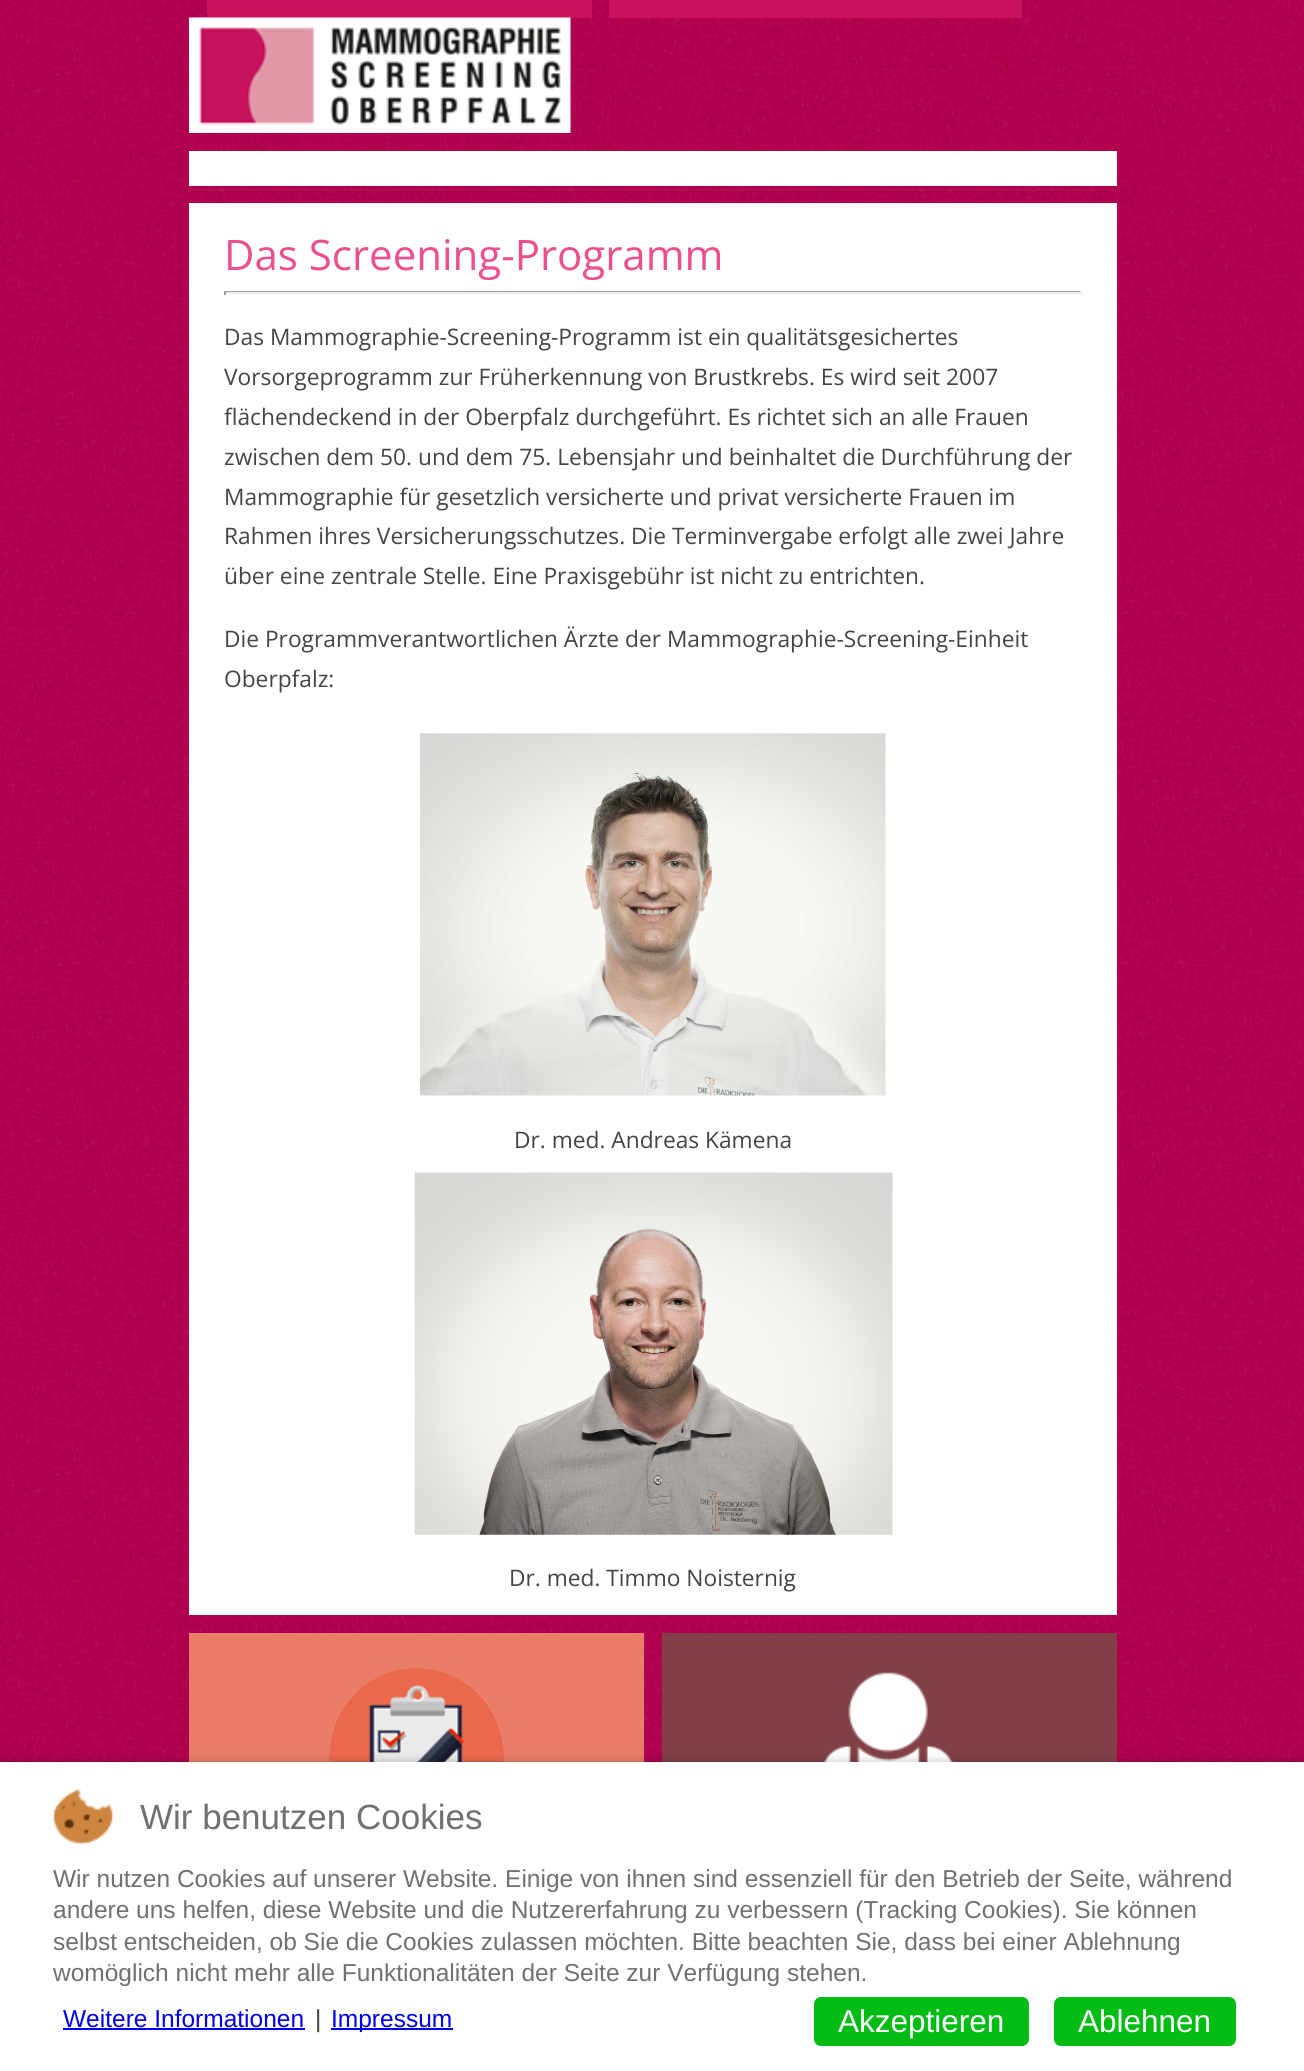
#include <cairo/cairo.h>
#include <math.h>
#include <stddef.h>


static void rounded_rect(cairo_t *cr, double x, double y, double w, double h, double r) {
  cairo_new_sub_path(cr);
  cairo_arc(cr, x + w - r, y + h - r, r, 0, M_PI / 2);
  cairo_arc(cr, x + r, y + h - r, r, M_PI / 2, M_PI);
  cairo_arc(cr, x + r, y + r, r, M_PI, 1.5 * M_PI);
  cairo_arc(cr, x + w - r, y + r, r, 1.5 * M_PI, 2 * M_PI);
  cairo_close_path(cr);
}

static void draw_shadow(cairo_t *cr, double x, double y, double w, double h, double r, double blur, double alpha) {
  cairo_push_group_with_content(cr, CAIRO_CONTENT_ALPHA);
  cairo_set_operator(cr, CAIRO_OPERATOR_SOURCE);
  for (int i = 15; i >= -15 && fmin(w, h) + blur * i / 3 > 0; i -= 2) {
    double e = blur * i / 6;
    cairo_set_source_rgba(cr, 0, 0, 0, alpha * erfc((i - 1) / 8.5) / 2);
    rounded_rect(cr, x - e, y - e, w + 2 * e, h + 2 * e, fmax(0, fmin(r + e + blur * .6, fmin(w, h) / 2 + e)));
    cairo_fill(cr);
  }
  cairo_pattern_t *soft = cairo_pop_group(cr);
  cairo_mask(cr, soft);
  cairo_pattern_destroy(soft);
}

static void draw_image(cairo_t *cr, const char *path, double x, double y, double w, double h) {
  cairo_surface_t *image = cairo_image_surface_create_from_png(path);
  cairo_save(cr);
  cairo_set_source_surface(cr, image, x, y);
  cairo_rectangle(cr, x, y, w, h);
  cairo_fill(cr);
  cairo_restore(cr);
  cairo_surface_destroy(image);
}

static void draw(cairo_t *cr) {
  cairo_set_source_rgb(cr, 1, 1, 1);
  cairo_paint(cr);
  draw_image(cr, "images/1.png", 0, 0, 1304, 1762);
  cairo_set_source_rgb(cr, 200 / 255.0, 18 / 255.0, 92 / 255.0);
  cairo_rectangle(cr, 207, 0, 385, 18);
  cairo_fill(cr);
  cairo_rectangle(cr, 609, 0, 413, 18);
  cairo_fill(cr);
  draw_image(cr, "images/2.png", 189, 17, 382, 116);
  cairo_set_source_rgb(cr, 1, 1, 1);
  cairo_rectangle(cr, 189, 151, 928, 35);
  cairo_fill(cr);
  cairo_rectangle(cr, 189, 203, 928, 1412);
  cairo_fill(cr);
  cairo_set_source_rgb(cr, 159 / 255.0, 159 / 255.0, 159 / 255.0);
  cairo_rectangle(cr, 224, 291, 858, 1);
  cairo_fill(cr);
  cairo_set_source_rgb(cr, 238 / 255.0, 238 / 255.0, 238 / 255.0);
  cairo_rectangle(cr, 1080, 291, 2, 4);
  cairo_fill(cr);
  cairo_rectangle(cr, 224, 292, 858, 2);
  cairo_fill(cr);
  cairo_set_source_rgb(cr, 159 / 255.0, 159 / 255.0, 159 / 255.0);
  cairo_rectangle(cr, 224, 291, 2, 4);
  cairo_fill(cr);
  draw_image(cr, "images/3.png", 420, 733, 466, 363);
  draw_image(cr, "images/4.png", 414, 1172, 479, 363);
  cairo_set_source_rgb(cr, 234 / 255.0, 125 / 255.0, 103 / 255.0);
  cairo_rectangle(cr, 189, 1633, 455, 129);
  cairo_fill(cr);
  draw_image(cr, "images/5.png", 329, 1667, 175, 95);
  cairo_set_source_rgb(cr, 128 / 255.0, 64 / 255.0, 69 / 255.0);
  cairo_rectangle(cr, 662, 1633, 455, 129);
  cairo_fill(cr);
  draw_image(cr, "images/6.png", 823, 1672, 130, 90);
  cairo_set_source_rgb(cr, 0, 0, 0);
  draw_shadow(cr, 0, 1762, 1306, 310, 0, 4.5, 0.25);
  cairo_set_source_rgb(cr, 1, 1, 1);
  cairo_rectangle(cr, 0, 1762, 1304, 309);
  cairo_fill(cr);
  draw_image(cr, "images/7.png", 52, 1788, 62, 57);
  cairo_set_source_rgb(cr, 0, 0, 238 / 255.0);
  cairo_rectangle(cr, 63, 2028, 242, 2);
  cairo_fill(cr);
  cairo_rectangle(cr, 331, 2028, 122, 2);
  cairo_fill(cr);
  cairo_set_source_rgb(cr, 0, 188 / 255.0, 19 / 255.0);
  rounded_rect(cr, 814, 1997, 215, 49, 7);
  cairo_fill(cr);
  rounded_rect(cr, 1054, 1997, 182, 49, 7);
  cairo_fill(cr);
  cairo_select_font_face(cr, "Open Sans", CAIRO_FONT_SLANT_NORMAL, CAIRO_FONT_WEIGHT_NORMAL);
  cairo_set_font_size(cr, 42);
  cairo_set_source_rgb(cr, 239 / 255.0, 78 / 255.0, 142 / 255.0);
  cairo_move_to(cr, 224, 270);
  cairo_show_text(cr, "Das Screening-Programm");
  cairo_set_font_size(cr, 22.75);
  cairo_set_source_rgb(cr, 68 / 255.0, 68 / 255.0, 68 / 255.0);
  cairo_move_to(cr, 224, 345);
  cairo_show_text(cr, "Das Mammographie-Screening-Programm ist ein qualitätsgesichertes");
  cairo_move_to(cr, 224, 385);
  cairo_show_text(cr, "Vorsorgeprogramm zur Früherkennung von Brustkrebs. Es wird seit 2007");
  cairo_move_to(cr, 224, 425);
  cairo_show_text(cr, "flächendeckend in der Oberpfalz durchgeführt. Es richtet sich an alle Frauen");
  cairo_move_to(cr, 224, 465);
  cairo_show_text(cr, "zwischen dem 50. und dem 75. Lebensjahr und beinhaltet die Durchführung der");
  cairo_move_to(cr, 224, 505);
  cairo_show_text(cr, "Mammographie für gesetzlich versicherte und privat versicherte Frauen im");
  cairo_move_to(cr, 224, 544);
  cairo_show_text(cr, "Rahmen ihres Versicherungsschutzes. Die Terminvergabe erfolgt alle zwei Jahre");
  cairo_move_to(cr, 224, 584);
  cairo_show_text(cr, "über eine zentrale Stelle. Eine Praxisgebühr ist nicht zu entrichten.");
  cairo_move_to(cr, 224, 647);
  cairo_show_text(cr, "Die Programmverantwortlichen Ärzte der Mammographie-Screening-Einheit");
  cairo_move_to(cr, 224, 687);
  cairo_show_text(cr, "Oberpfalz:");
  cairo_move_to(cr, 514, 1148);
  cairo_show_text(cr, "Dr. med. Andreas Kämena");
  cairo_move_to(cr, 509, 1586);
  cairo_show_text(cr, "Dr. med. Timmo Noisternig");
  cairo_select_font_face(cr, "Liberation Sans", CAIRO_FONT_SLANT_NORMAL, CAIRO_FONT_WEIGHT_NORMAL);
  cairo_set_font_size(cr, 35);
  cairo_set_source_rgb(cr, 112 / 255.0, 112 / 255.0, 112 / 255.0);
  cairo_move_to(cr, 140, 1829);
  cairo_show_text(cr, "Wir benutzen Cookies");
  cairo_set_font_size(cr, 24.5);
  cairo_move_to(cr, 53, 1887);
  cairo_show_text(cr, "Wir nutzen Cookies auf unserer Website. Einige von ihnen sind essenziell für den Betrieb der Seite, während");
  cairo_move_to(cr, 53, 1918);
  cairo_show_text(cr, "andere uns helfen, diese Website und die Nutzererfahrung zu verbessern (Tracking Cookies). Sie können");
  cairo_move_to(cr, 53, 1950);
  cairo_show_text(cr, "selbst entscheiden, ob Sie die Cookies zulassen möchten. Bitte beachten Sie, dass bei einer Ablehnung");
  cairo_move_to(cr, 53, 1981);
  cairo_show_text(cr, "womöglich nicht mehr alle Funktionalitäten der Seite zur Verfügung stehen.");
  cairo_set_source_rgb(cr, 0, 0, 238 / 255.0);
  cairo_move_to(cr, 63, 2027);
  cairo_show_text(cr, "Weitere Informationen");
  cairo_set_source_rgb(cr, 68 / 255.0, 68 / 255.0, 68 / 255.0);
  cairo_move_to(cr, 315, 2027);
  cairo_show_text(cr, "|");
  cairo_set_source_rgb(cr, 0, 0, 238 / 255.0);
  cairo_move_to(cr, 331, 2027);
  cairo_show_text(cr, "Impressum");
  cairo_set_font_size(cr, 31.5);
  cairo_set_source_rgb(cr, 1, 1, 1);
  cairo_move_to(cr, 838, 2032);
  cairo_show_text(cr, "Akzeptieren");
  cairo_move_to(cr, 1078, 2032);
  cairo_show_text(cr, "Ablehnen");
}

int main(void) {
  cairo_surface_t *surface = cairo_image_surface_create(CAIRO_FORMAT_RGB24, 1304, 2071);
  cairo_t *cr = cairo_create(surface);
  cairo_font_options_t *options = cairo_font_options_create();
  cairo_font_options_set_hint_metrics(options, CAIRO_HINT_METRICS_OFF);
  cairo_font_options_set_hint_style(options, CAIRO_HINT_STYLE_NONE);
  cairo_set_font_options(cr, options);
  cairo_set_miter_limit(cr, 4);
  draw(cr);
  cairo_surface_write_to_png(surface, "out.png");
  cairo_font_options_destroy(options);
  cairo_destroy(cr);
  cairo_surface_destroy(surface);
  return 0;
}
